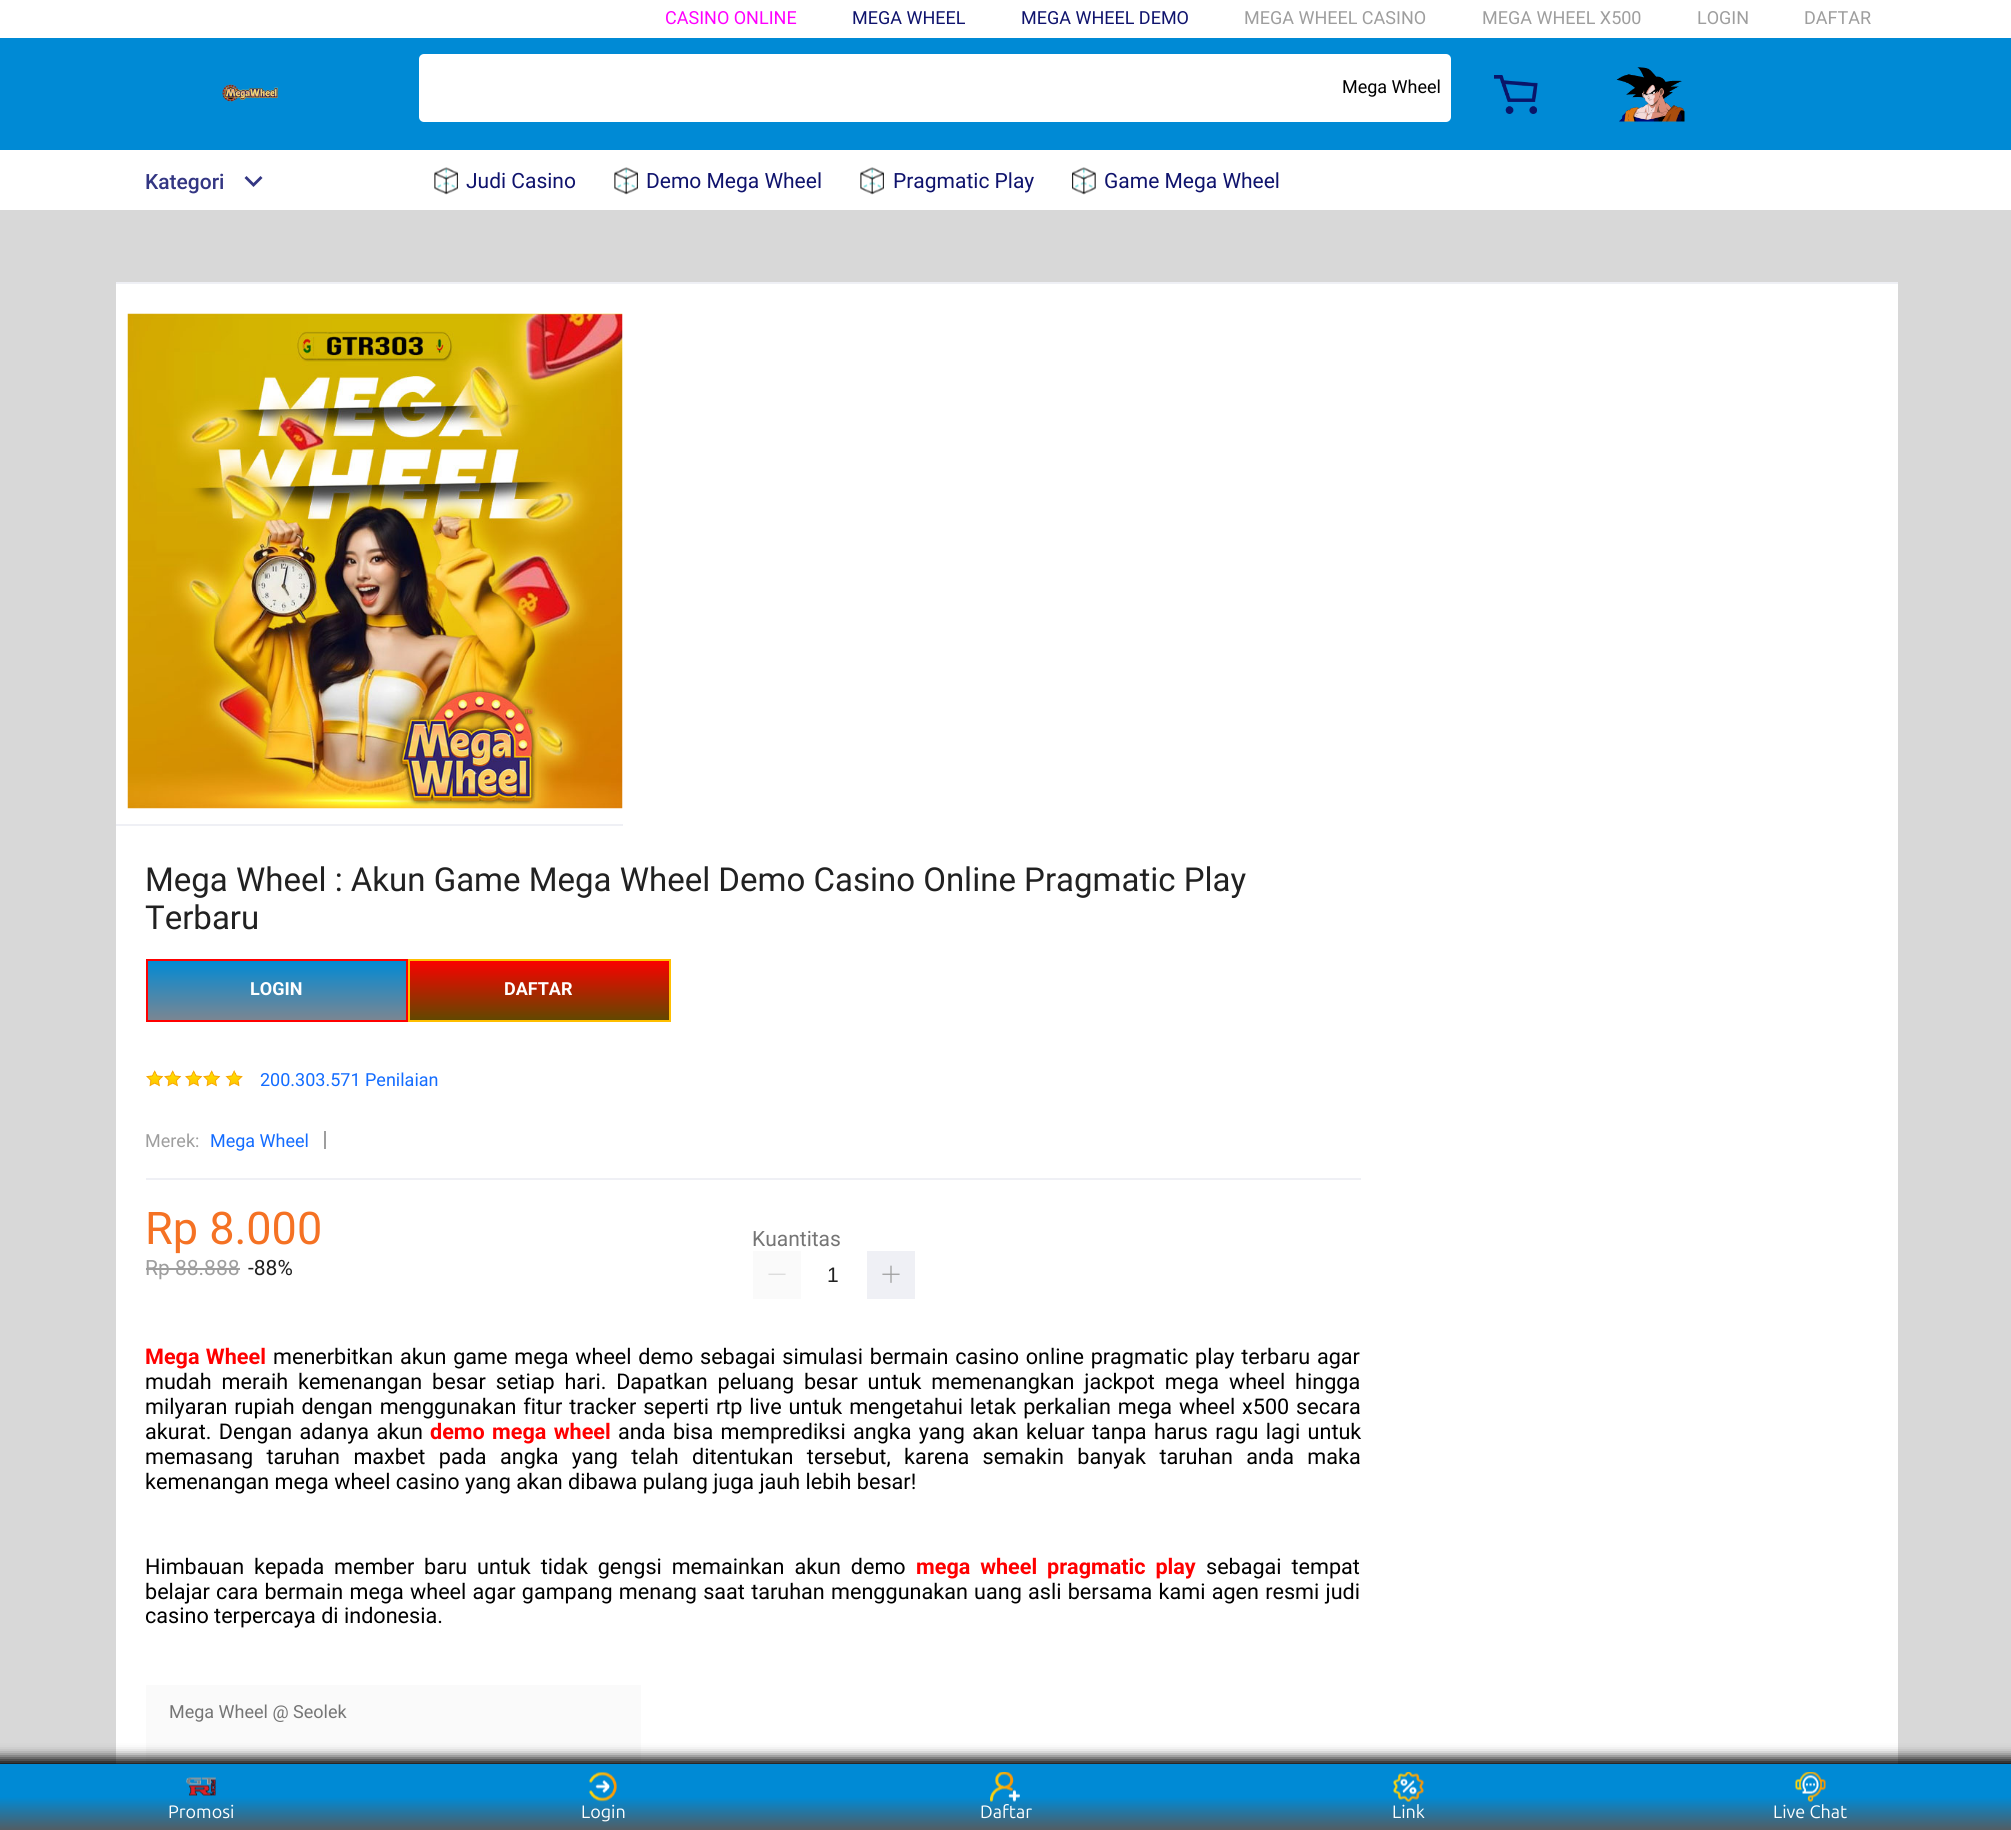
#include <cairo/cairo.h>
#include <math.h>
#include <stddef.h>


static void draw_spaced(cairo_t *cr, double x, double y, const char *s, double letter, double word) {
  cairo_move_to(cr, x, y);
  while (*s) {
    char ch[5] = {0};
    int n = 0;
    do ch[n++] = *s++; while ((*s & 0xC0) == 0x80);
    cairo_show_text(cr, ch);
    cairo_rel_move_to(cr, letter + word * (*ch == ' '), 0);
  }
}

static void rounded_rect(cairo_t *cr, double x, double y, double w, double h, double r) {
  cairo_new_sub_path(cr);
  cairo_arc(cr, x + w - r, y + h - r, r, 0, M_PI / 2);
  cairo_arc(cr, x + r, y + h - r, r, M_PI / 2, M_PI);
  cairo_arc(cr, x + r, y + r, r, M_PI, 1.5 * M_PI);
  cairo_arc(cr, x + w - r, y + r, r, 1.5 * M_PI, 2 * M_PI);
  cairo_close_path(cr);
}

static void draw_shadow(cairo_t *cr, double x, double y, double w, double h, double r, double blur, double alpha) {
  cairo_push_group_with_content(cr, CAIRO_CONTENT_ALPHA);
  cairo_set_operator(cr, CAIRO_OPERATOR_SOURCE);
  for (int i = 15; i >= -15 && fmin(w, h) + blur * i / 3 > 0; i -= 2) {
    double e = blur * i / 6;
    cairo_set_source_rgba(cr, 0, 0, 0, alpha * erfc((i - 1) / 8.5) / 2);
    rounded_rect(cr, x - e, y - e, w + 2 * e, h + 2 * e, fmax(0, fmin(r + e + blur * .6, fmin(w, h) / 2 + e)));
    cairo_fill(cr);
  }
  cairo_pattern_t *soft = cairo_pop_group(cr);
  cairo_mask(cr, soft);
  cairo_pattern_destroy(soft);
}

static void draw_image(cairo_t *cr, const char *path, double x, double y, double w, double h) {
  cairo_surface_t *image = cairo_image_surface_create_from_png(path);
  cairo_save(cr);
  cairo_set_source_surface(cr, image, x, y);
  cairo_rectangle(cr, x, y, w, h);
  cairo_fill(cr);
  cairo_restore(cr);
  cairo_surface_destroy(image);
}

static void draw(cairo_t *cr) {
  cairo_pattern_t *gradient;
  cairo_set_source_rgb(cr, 216 / 255.0, 216 / 255.0, 216 / 255.0);
  cairo_paint(cr);
  cairo_set_source_rgb(cr, 1, 1, 1);
  cairo_rectangle(cr, 0, 0, 2011, 210);
  cairo_fill(cr);
  cairo_set_source_rgb(cr, 0, 138 / 255.0, 213 / 255.0);
  cairo_rectangle(cr, 0, 38, 2011, 112);
  cairo_fill(cr);
  draw_image(cr, "images/1.png", 222, 84, 56, 18);
  cairo_set_source_rgb(cr, 1, 1, 1);
  rounded_rect(cr, 419, 54, 1032, 68, 5);
  cairo_fill(cr);
  draw_image(cr, "images/2.png", 1494, 75, 44, 39);
  draw_image(cr, "images/3.png", 1616, 67, 69, 55);
  cairo_set_source_rgb(cr, 51 / 255.0, 54 / 255.0, 131 / 255.0);
  cairo_new_path(cr);
  cairo_move_to(cr, 260.5, 176);
  cairo_line_to(cr, 262.5, 178);
  cairo_line_to(cr, 253.5, 187);
  cairo_line_to(cr, 244.5, 178);
  cairo_line_to(cr, 246.5, 176);
  cairo_line_to(cr, 253.5, 183);
  cairo_close_path(cr);
  cairo_fill(cr);
  draw_image(cr, "images/4.png", 434, 167, 24, 28);
  draw_image(cr, "images/4.png", 614, 167, 24, 28);
  draw_image(cr, "images/4.png", 860, 167, 24, 28);
  draw_image(cr, "images/5.png", 1072, 167, 24, 28);
  cairo_set_source_rgb(cr, 239 / 255.0, 240 / 255.0, 245 / 255.0);
  cairo_rectangle(cr, 116, 282, 1782, 2);
  cairo_fill(cr);
  cairo_set_source_rgb(cr, 1, 1, 1);
  cairo_rectangle(cr, 116, 284, 1782, 1480);
  cairo_fill(cr);
  cairo_set_source_rgb(cr, 239 / 255.0, 240 / 255.0, 245 / 255.0);
  cairo_rectangle(cr, 116, 824, 507, 2);
  cairo_fill(cr);
  draw_image(cr, "images/6.png", 127, 313, 496, 496);
  gradient = cairo_pattern_create_linear(277, 960, 277, 1020);
  cairo_pattern_add_color_stop_rgba(gradient, 0, 0, 138 / 255.0, 213 / 255.0, 1);
  cairo_pattern_add_color_stop_rgba(gradient, 1, 122 / 255.0, 134 / 255.0, 146 / 255.0, 1);
  cairo_set_source(cr, gradient);
  cairo_pattern_destroy(gradient);
  cairo_rectangle(cr, 148, 961, 258, 59);
  cairo_fill(cr);
  cairo_rectangle(cr, 147, 960, 260, 61);
  cairo_set_source_rgb(cr, 1, 0, 0);
  cairo_stroke(cr);
  gradient = cairo_pattern_create_linear(539, 960, 539, 1020);
  cairo_pattern_add_color_stop_rgba(gradient, 0, 253 / 255.0, 0, 0, 1);
  cairo_pattern_add_color_stop_rgba(gradient, 1, 98 / 255.0, 72 / 255.0, 0, 1);
  cairo_set_source(cr, gradient);
  cairo_pattern_destroy(gradient);
  cairo_rectangle(cr, 410, 961, 259, 59);
  cairo_fill(cr);
  cairo_rectangle(cr, 409, 960, 261, 61);
  cairo_set_source_rgb(cr, 1, 191 / 255.0, 0);
  cairo_stroke(cr);
  draw_image(cr, "images/7.png", 146, 1070, 18, 17);
  draw_image(cr, "images/7.png", 164, 1070, 18, 17);
  draw_image(cr, "images/7.png", 185, 1070, 18, 17);
  draw_image(cr, "images/7.png", 203, 1070, 18, 17);
  draw_image(cr, "images/8.png", 225, 1070, 18, 17);
  cairo_set_source_rgb(cr, 239 / 255.0, 240 / 255.0, 245 / 255.0);
  cairo_rectangle(cr, 146, 1178, 1215, 2);
  cairo_fill(cr);
  cairo_set_source_rgb(cr, 158 / 255.0, 158 / 255.0, 158 / 255.0);
  cairo_rectangle(cr, 324, 1131, 2, 18);
  cairo_fill(cr);
  cairo_rectangle(cr, 146, 1268, 94, 2);
  cairo_fill(cr);
  cairo_set_source_rgb(cr, 250 / 255.0, 250 / 255.0, 250 / 255.0);
  cairo_rectangle(cr, 753, 1251, 48, 48);
  cairo_fill(cr);
  draw_image(cr, "images/9.png", 768, 1273, 18, 2);
  cairo_set_source_rgb(cr, 239 / 255.0, 240 / 255.0, 245 / 255.0);
  cairo_rectangle(cr, 867, 1251, 48, 48);
  cairo_fill(cr);
  draw_image(cr, "images/10.png", 882, 1265, 18, 18);
  cairo_set_source_rgb(cr, 250 / 255.0, 250 / 255.0, 250 / 255.0);
  cairo_rectangle(cr, 146, 1685, 495, 79);
  cairo_fill(cr);
  cairo_set_source_rgb(cr, 0, 0, 0);
  draw_shadow(cr, -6, 1758, 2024, 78, 0, 6, 1);
  gradient = cairo_pattern_create_linear(1006, 1764, 1006, 1830);
  cairo_pattern_add_color_stop_rgba(gradient, 0, 0, 138 / 255.0, 213 / 255.0, 1);
  cairo_pattern_add_color_stop_rgba(gradient, 0.5, 0, 138 / 255.0, 213 / 255.0, 1);
  cairo_pattern_add_color_stop_rgba(gradient, 1, 82 / 255.0, 93 / 255.0, 99 / 255.0, 1);
  cairo_set_source(cr, gradient);
  cairo_pattern_destroy(gradient);
  cairo_rectangle(cr, 0, 1764, 2011, 66);
  cairo_fill(cr);
  draw_image(cr, "images/11.png", 186, 1777, 30, 19);
  draw_image(cr, "images/12.png", 589, 1772, 28, 30);
  draw_image(cr, "images/13.png", 990, 1772, 30, 30);
  draw_image(cr, "images/14.png", 1393, 1772, 31, 30);
  draw_image(cr, "images/15.png", 1795, 1772, 31, 30);
  cairo_select_font_face(cr, "Roboto", CAIRO_FONT_SLANT_NORMAL, CAIRO_FONT_WEIGHT_NORMAL);
  cairo_set_font_size(cr, 18);
  cairo_set_source_rgb(cr, 1, 0, 1);
  cairo_move_to(cr, 665, 24);
  cairo_show_text(cr, "CASINO ONLINE");
  cairo_set_source_rgb(cr, 15 / 255.0, 19 / 255.0, 109 / 255.0);
  cairo_move_to(cr, 852, 24);
  cairo_show_text(cr, "MEGA WHEEL");
  cairo_move_to(cr, 1021, 24);
  cairo_show_text(cr, "MEGA WHEEL DEMO");
  cairo_set_source_rgb(cr, 158 / 255.0, 158 / 255.0, 158 / 255.0);
  cairo_move_to(cr, 1244, 24);
  cairo_show_text(cr, "MEGA WHEEL CASINO");
  cairo_move_to(cr, 1482, 24);
  cairo_show_text(cr, "MEGA WHEEL X500");
  cairo_move_to(cr, 1697, 24);
  cairo_show_text(cr, "LOGIN");
  cairo_move_to(cr, 1804, 24);
  cairo_show_text(cr, "DAFTAR");
  cairo_set_source_rgb(cr, 0, 0, 0);
  cairo_move_to(cr, 1342, 93);
  cairo_show_text(cr, "Mega Wheel");
  cairo_select_font_face(cr, "Roboto Medium", CAIRO_FONT_SLANT_NORMAL, CAIRO_FONT_WEIGHT_NORMAL);
  cairo_set_font_size(cr, 21);
  cairo_set_source_rgb(cr, 51 / 255.0, 54 / 255.0, 131 / 255.0);
  cairo_move_to(cr, 145, 189);
  cairo_show_text(cr, "Kategori");
  cairo_select_font_face(cr, "Roboto", CAIRO_FONT_SLANT_NORMAL, CAIRO_FONT_WEIGHT_NORMAL);
  cairo_set_source_rgb(cr, 15 / 255.0, 19 / 255.0, 109 / 255.0);
  cairo_move_to(cr, 466, 188);
  cairo_show_text(cr, "Judi Casino");
  cairo_move_to(cr, 646, 188);
  cairo_show_text(cr, "Demo Mega Wheel");
  cairo_move_to(cr, 893, 188);
  cairo_show_text(cr, "Pragmatic Play");
  cairo_move_to(cr, 1104, 188);
  cairo_show_text(cr, "Game Mega Wheel");
  cairo_set_font_size(cr, 33);
  cairo_set_source_rgb(cr, 33 / 255.0, 33 / 255.0, 33 / 255.0);
  cairo_move_to(cr, 145, 891);
  cairo_show_text(cr, "Mega Wheel : Akun Game Mega Wheel Demo Casino Online Pragmatic Play");
  cairo_move_to(cr, 145, 929);
  cairo_show_text(cr, "Terbaru");
  cairo_select_font_face(cr, "Roboto", CAIRO_FONT_SLANT_NORMAL, CAIRO_FONT_WEIGHT_BOLD);
  cairo_set_font_size(cr, 18);
  cairo_set_source_rgb(cr, 1, 1, 1);
  cairo_move_to(cr, 250, 995);
  cairo_show_text(cr, "LOGIN");
  cairo_move_to(cr, 504, 995);
  cairo_show_text(cr, "DAFTAR");
  cairo_select_font_face(cr, "Roboto", CAIRO_FONT_SLANT_NORMAL, CAIRO_FONT_WEIGHT_NORMAL);
  cairo_set_source_rgb(cr, 19 / 255.0, 108 / 255.0, 1);
  cairo_move_to(cr, 260, 1086);
  cairo_show_text(cr, "200.303.571 Penilaian");
  cairo_set_source_rgb(cr, 158 / 255.0, 158 / 255.0, 158 / 255.0);
  cairo_move_to(cr, 145, 1147);
  cairo_show_text(cr, "Merek:");
  cairo_set_source_rgb(cr, 19 / 255.0, 108 / 255.0, 1);
  cairo_move_to(cr, 210, 1147);
  cairo_show_text(cr, "Mega Wheel");
  cairo_set_font_size(cr, 45);
  cairo_set_source_rgb(cr, 245 / 255.0, 114 / 255.0, 36 / 255.0);
  cairo_move_to(cr, 145, 1244);
  cairo_show_text(cr, "Rp 8.000");
  cairo_set_font_size(cr, 21);
  cairo_set_source_rgb(cr, 158 / 255.0, 158 / 255.0, 158 / 255.0);
  cairo_move_to(cr, 145, 1275);
  cairo_show_text(cr, "Rp 88.888");
  cairo_set_source_rgb(cr, 33 / 255.0, 33 / 255.0, 33 / 255.0);
  cairo_move_to(cr, 248, 1275);
  cairo_show_text(cr, "-88%");
  cairo_set_source_rgb(cr, 117 / 255.0, 117 / 255.0, 117 / 255.0);
  cairo_move_to(cr, 752, 1246);
  cairo_show_text(cr, "Kuantitas");
  cairo_select_font_face(cr, "Liberation Sans", CAIRO_FONT_SLANT_NORMAL, CAIRO_FONT_WEIGHT_NORMAL);
  cairo_set_source_rgb(cr, 33 / 255.0, 33 / 255.0, 33 / 255.0);
  cairo_move_to(cr, 827, 1282);
  cairo_show_text(cr, "1");
  cairo_select_font_face(cr, "Roboto", CAIRO_FONT_SLANT_NORMAL, CAIRO_FONT_WEIGHT_BOLD);
  cairo_set_font_size(cr, 21.6);
  cairo_set_source_rgb(cr, 1, 0, 0);
  draw_spaced(cr, 145, 1364, "Mega Wheel", 0, 1);
  cairo_select_font_face(cr, "Roboto", CAIRO_FONT_SLANT_NORMAL, CAIRO_FONT_WEIGHT_NORMAL);
  cairo_set_source_rgb(cr, 0, 0, 0);
  draw_spaced(cr, 273, 1364, "menerbitkan akun game mega wheel demo sebagai simulasi bermain casino online pragmatic play terbaru agar", 0, 1.4);
  draw_spaced(cr, 145, 1389, "mudah meraih kemenangan besar setiap hari. Dapatkan peluang besar untuk memenangkan jackpot mega wheel hingga", 0, 4.5);
  draw_spaced(cr, 145, 1414, "milyaran rupiah dengan menggunakan fitur tracker seperti rtp live untuk mengetahui letak perkalian mega wheel x500 secara", 0, 1.5);
  draw_spaced(cr, 145, 1439, "akurat. Dengan adanya akun", 0, 2);
  cairo_select_font_face(cr, "Roboto", CAIRO_FONT_SLANT_NORMAL, CAIRO_FONT_WEIGHT_BOLD);
  cairo_set_source_rgb(cr, 1, 0, 0);
  draw_spaced(cr, 430, 1439, "demo mega wheel", 0, 2);
  cairo_select_font_face(cr, "Roboto", CAIRO_FONT_SLANT_NORMAL, CAIRO_FONT_WEIGHT_NORMAL);
  cairo_set_source_rgb(cr, 0, 0, 0);
  draw_spaced(cr, 618, 1439, "anda bisa memprediksi angka yang akan keluar tanpa harus ragu lagi untuk", 0, 2);
  draw_spaced(cr, 145, 1464, "memasang taruhan maxbet pada angka yang telah ditentukan tersebut, karena semakin banyak taruhan anda maka", 0, 8);
  cairo_move_to(cr, 145, 1489);
  cairo_show_text(cr, "kemenangan mega wheel casino yang akan dibawa pulang juga jauh lebih besar!");
  draw_spaced(cr, 145, 1574, "Himbauan kepada member baru untuk tidak gengsi memainkan akun demo", 0, 4.5);
  cairo_select_font_face(cr, "Roboto", CAIRO_FONT_SLANT_NORMAL, CAIRO_FONT_WEIGHT_BOLD);
  cairo_set_source_rgb(cr, 1, 0, 0);
  draw_spaced(cr, 916, 1574, "mega wheel pragmatic play", 0, 4.5);
  cairo_select_font_face(cr, "Roboto", CAIRO_FONT_SLANT_NORMAL, CAIRO_FONT_WEIGHT_NORMAL);
  cairo_set_source_rgb(cr, 0, 0, 0);
  draw_spaced(cr, 1206, 1574, "sebagai tempat", 0, 4.5);
  draw_spaced(cr, 145, 1599, "belajar cara bermain mega wheel agar gampang menang saat taruhan menggunakan uang asli bersama kami agen resmi judi", 0, 0.9);
  cairo_move_to(cr, 145, 1623);
  cairo_show_text(cr, "casino terpercaya di indonesia.");
  cairo_set_font_size(cr, 18);
  cairo_set_source_rgb(cr, 117 / 255.0, 117 / 255.0, 117 / 255.0);
  cairo_move_to(cr, 169, 1718);
  cairo_show_text(cr, "Mega Wheel @ Seolek");
  cairo_select_font_face(cr, "Ubuntu", CAIRO_FONT_SLANT_NORMAL, CAIRO_FONT_WEIGHT_NORMAL);
  cairo_set_source_rgb(cr, 1, 1, 1);
  cairo_move_to(cr, 168, 1818);
  cairo_show_text(cr, "Promosi");
  cairo_move_to(cr, 581, 1818);
  cairo_show_text(cr, "Login");
  cairo_move_to(cr, 980, 1818);
  cairo_show_text(cr, "Daftar");
  cairo_move_to(cr, 1392, 1818);
  cairo_show_text(cr, "Link");
  cairo_move_to(cr, 1773, 1818);
  cairo_show_text(cr, "Live Chat");
}

int main(void) {
  cairo_surface_t *surface = cairo_image_surface_create(CAIRO_FORMAT_RGB24, 2011, 1830);
  cairo_t *cr = cairo_create(surface);
  cairo_font_options_t *options = cairo_font_options_create();
  cairo_font_options_set_hint_metrics(options, CAIRO_HINT_METRICS_OFF);
  cairo_font_options_set_hint_style(options, CAIRO_HINT_STYLE_NONE);
  cairo_set_font_options(cr, options);
  cairo_set_miter_limit(cr, 4);
  draw(cr);
  cairo_surface_write_to_png(surface, "out.png");
  cairo_font_options_destroy(options);
  cairo_destroy(cr);
  cairo_surface_destroy(surface);
  return 0;
}
